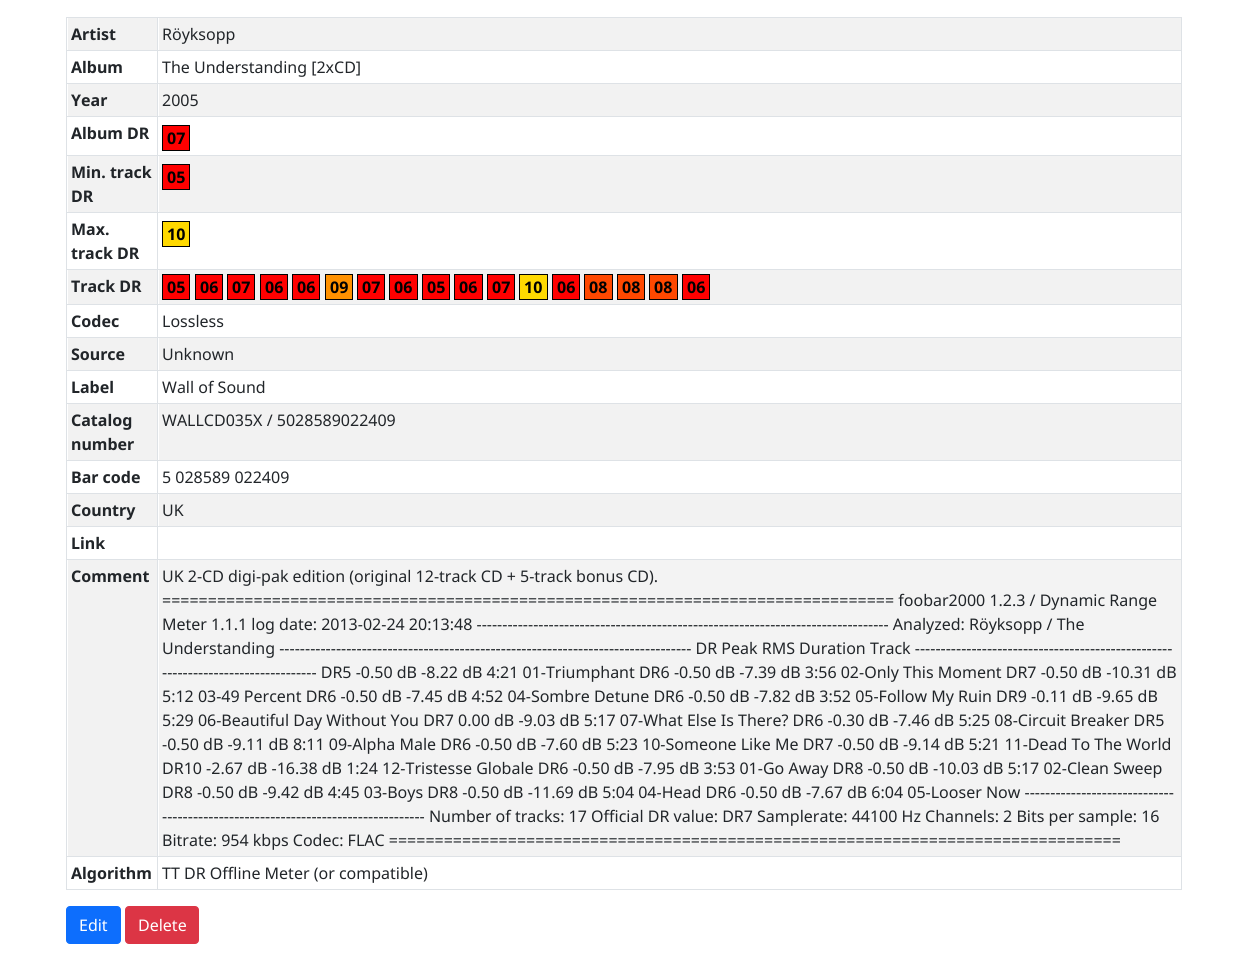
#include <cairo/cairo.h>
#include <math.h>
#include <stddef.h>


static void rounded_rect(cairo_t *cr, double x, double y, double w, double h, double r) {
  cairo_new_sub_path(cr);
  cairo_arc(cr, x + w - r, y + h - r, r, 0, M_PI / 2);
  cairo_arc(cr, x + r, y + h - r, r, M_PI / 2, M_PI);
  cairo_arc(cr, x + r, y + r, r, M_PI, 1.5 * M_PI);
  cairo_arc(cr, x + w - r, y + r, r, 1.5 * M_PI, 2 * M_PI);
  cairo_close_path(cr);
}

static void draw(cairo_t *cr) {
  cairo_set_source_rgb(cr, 1, 1, 1);
  cairo_paint(cr);
  cairo_set_source_rgb(cr, 222 / 255.0, 226 / 255.0, 230 / 255.0);
  cairo_rectangle(cr, 66, 17, 1116, 1);
  cairo_fill(cr);
  cairo_set_source_rgb(cr, 242 / 255.0, 242 / 255.0, 242 / 255.0);
  cairo_rectangle(cr, 68, 18, 89, 32);
  cairo_fill(cr);
  cairo_rectangle(cr, 159, 18, 1022, 32);
  cairo_fill(cr);
  cairo_set_source_rgb(cr, 222 / 255.0, 226 / 255.0, 230 / 255.0);
  cairo_rectangle(cr, 66, 50, 1116, 1);
  cairo_fill(cr);
  cairo_rectangle(cr, 66, 83, 1116, 1);
  cairo_fill(cr);
  cairo_set_source_rgb(cr, 242 / 255.0, 242 / 255.0, 242 / 255.0);
  cairo_rectangle(cr, 68, 84, 89, 32);
  cairo_fill(cr);
  cairo_rectangle(cr, 159, 84, 1022, 32);
  cairo_fill(cr);
  cairo_set_source_rgb(cr, 222 / 255.0, 226 / 255.0, 230 / 255.0);
  cairo_rectangle(cr, 66, 116, 1116, 1);
  cairo_fill(cr);
  cairo_set_source_rgb(cr, 1, 0, 0);
  cairo_rectangle(cr, 162.5, 125.5, 27, 25);
  cairo_fill_preserve(cr);
  cairo_set_source_rgb(cr, 0, 0, 0);
  cairo_set_line_width(cr, 1);
  cairo_stroke(cr);
  cairo_set_source_rgb(cr, 222 / 255.0, 226 / 255.0, 230 / 255.0);
  cairo_rectangle(cr, 66, 155, 1116, 1);
  cairo_fill(cr);
  cairo_set_source_rgb(cr, 242 / 255.0, 242 / 255.0, 242 / 255.0);
  cairo_rectangle(cr, 68, 156, 89, 56);
  cairo_fill(cr);
  cairo_rectangle(cr, 159, 156, 1022, 56);
  cairo_fill(cr);
  cairo_set_source_rgb(cr, 1, 0, 0);
  cairo_rectangle(cr, 162.5, 164.5, 27, 25);
  cairo_fill_preserve(cr);
  cairo_set_source_rgb(cr, 0, 0, 0);
  cairo_stroke(cr);
  cairo_set_source_rgb(cr, 222 / 255.0, 226 / 255.0, 230 / 255.0);
  cairo_rectangle(cr, 66, 212, 1116, 1);
  cairo_fill(cr);
  cairo_set_source_rgb(cr, 1, 217 / 255.0, 0);
  cairo_rectangle(cr, 162.5, 221.5, 27, 25);
  cairo_fill_preserve(cr);
  cairo_set_source_rgb(cr, 0, 0, 0);
  cairo_stroke(cr);
  cairo_set_source_rgb(cr, 222 / 255.0, 226 / 255.0, 230 / 255.0);
  cairo_rectangle(cr, 66, 269, 1116, 1);
  cairo_fill(cr);
  cairo_set_source_rgb(cr, 242 / 255.0, 242 / 255.0, 242 / 255.0);
  cairo_rectangle(cr, 68, 270, 89, 34);
  cairo_fill(cr);
  cairo_rectangle(cr, 159, 270, 1022, 34);
  cairo_fill(cr);
  cairo_set_source_rgb(cr, 1, 0, 0);
  cairo_rectangle(cr, 162.5, 274.5, 27, 25);
  cairo_fill_preserve(cr);
  cairo_set_source_rgb(cr, 0, 0, 0);
  cairo_stroke(cr);
  cairo_set_source_rgb(cr, 1, 0, 0);
  cairo_rectangle(cr, 195.5, 274.5, 27, 25);
  cairo_fill_preserve(cr);
  cairo_set_source_rgb(cr, 0, 0, 0);
  cairo_stroke(cr);
  cairo_set_source_rgb(cr, 1, 0, 0);
  cairo_rectangle(cr, 227.5, 274.5, 27, 25);
  cairo_fill_preserve(cr);
  cairo_set_source_rgb(cr, 0, 0, 0);
  cairo_stroke(cr);
  cairo_set_source_rgb(cr, 1, 0, 0);
  cairo_rectangle(cr, 260.5, 274.5, 27, 25);
  cairo_fill_preserve(cr);
  cairo_set_source_rgb(cr, 0, 0, 0);
  cairo_stroke(cr);
  cairo_set_source_rgb(cr, 1, 0, 0);
  cairo_rectangle(cr, 292.5, 274.5, 27, 25);
  cairo_fill_preserve(cr);
  cairo_set_source_rgb(cr, 0, 0, 0);
  cairo_stroke(cr);
  cairo_set_source_rgb(cr, 1, 145 / 255.0, 0);
  cairo_rectangle(cr, 325.5, 274.5, 27, 25);
  cairo_fill_preserve(cr);
  cairo_set_source_rgb(cr, 0, 0, 0);
  cairo_stroke(cr);
  cairo_set_source_rgb(cr, 1, 0, 0);
  cairo_rectangle(cr, 357.5, 274.5, 27, 25);
  cairo_fill_preserve(cr);
  cairo_set_source_rgb(cr, 0, 0, 0);
  cairo_stroke(cr);
  cairo_set_source_rgb(cr, 1, 0, 0);
  cairo_rectangle(cr, 389.5, 274.5, 28, 25);
  cairo_fill_preserve(cr);
  cairo_set_source_rgb(cr, 0, 0, 0);
  cairo_stroke(cr);
  cairo_set_source_rgb(cr, 1, 0, 0);
  cairo_rectangle(cr, 422.5, 274.5, 27, 25);
  cairo_fill_preserve(cr);
  cairo_set_source_rgb(cr, 0, 0, 0);
  cairo_stroke(cr);
  cairo_set_source_rgb(cr, 1, 0, 0);
  cairo_rectangle(cr, 454.5, 274.5, 28, 25);
  cairo_fill_preserve(cr);
  cairo_set_source_rgb(cr, 0, 0, 0);
  cairo_stroke(cr);
  cairo_set_source_rgb(cr, 1, 0, 0);
  cairo_rectangle(cr, 487.5, 274.5, 27, 25);
  cairo_fill_preserve(cr);
  cairo_set_source_rgb(cr, 0, 0, 0);
  cairo_stroke(cr);
  cairo_set_source_rgb(cr, 1, 217 / 255.0, 0);
  cairo_rectangle(cr, 519.5, 274.5, 28, 25);
  cairo_fill_preserve(cr);
  cairo_set_source_rgb(cr, 0, 0, 0);
  cairo_stroke(cr);
  cairo_set_source_rgb(cr, 1, 0, 0);
  cairo_rectangle(cr, 552.5, 274.5, 27, 25);
  cairo_fill_preserve(cr);
  cairo_set_source_rgb(cr, 0, 0, 0);
  cairo_stroke(cr);
  cairo_set_source_rgb(cr, 1, 72 / 255.0, 0);
  cairo_rectangle(cr, 584.5, 274.5, 28, 25);
  cairo_fill_preserve(cr);
  cairo_set_source_rgb(cr, 0, 0, 0);
  cairo_stroke(cr);
  cairo_set_source_rgb(cr, 1, 72 / 255.0, 0);
  cairo_rectangle(cr, 617.5, 274.5, 27, 25);
  cairo_fill_preserve(cr);
  cairo_set_source_rgb(cr, 0, 0, 0);
  cairo_stroke(cr);
  cairo_set_source_rgb(cr, 1, 72 / 255.0, 0);
  cairo_rectangle(cr, 649.5, 274.5, 28, 25);
  cairo_fill_preserve(cr);
  cairo_set_source_rgb(cr, 0, 0, 0);
  cairo_stroke(cr);
  cairo_set_source_rgb(cr, 1, 0, 0);
  cairo_rectangle(cr, 682.5, 274.5, 27, 25);
  cairo_fill_preserve(cr);
  cairo_set_source_rgb(cr, 0, 0, 0);
  cairo_stroke(cr);
  cairo_set_source_rgb(cr, 222 / 255.0, 226 / 255.0, 230 / 255.0);
  cairo_rectangle(cr, 66, 304, 1116, 1);
  cairo_fill(cr);
  cairo_rectangle(cr, 66, 337, 1116, 1);
  cairo_fill(cr);
  cairo_set_source_rgb(cr, 242 / 255.0, 242 / 255.0, 242 / 255.0);
  cairo_rectangle(cr, 68, 338, 89, 32);
  cairo_fill(cr);
  cairo_rectangle(cr, 159, 338, 1022, 32);
  cairo_fill(cr);
  cairo_set_source_rgb(cr, 222 / 255.0, 226 / 255.0, 230 / 255.0);
  cairo_rectangle(cr, 66, 370, 1116, 1);
  cairo_fill(cr);
  cairo_rectangle(cr, 66, 403, 1116, 1);
  cairo_fill(cr);
  cairo_set_source_rgb(cr, 242 / 255.0, 242 / 255.0, 242 / 255.0);
  cairo_rectangle(cr, 68, 404, 89, 56);
  cairo_fill(cr);
  cairo_rectangle(cr, 159, 404, 1022, 56);
  cairo_fill(cr);
  cairo_set_source_rgb(cr, 222 / 255.0, 226 / 255.0, 230 / 255.0);
  cairo_rectangle(cr, 66, 460, 1116, 1);
  cairo_fill(cr);
  cairo_rectangle(cr, 66, 493, 1116, 1);
  cairo_fill(cr);
  cairo_set_source_rgb(cr, 242 / 255.0, 242 / 255.0, 242 / 255.0);
  cairo_rectangle(cr, 68, 494, 89, 32);
  cairo_fill(cr);
  cairo_rectangle(cr, 159, 494, 1022, 32);
  cairo_fill(cr);
  cairo_set_source_rgb(cr, 222 / 255.0, 226 / 255.0, 230 / 255.0);
  cairo_rectangle(cr, 66, 526, 1116, 1);
  cairo_fill(cr);
  cairo_rectangle(cr, 66, 559, 1116, 1);
  cairo_fill(cr);
  cairo_set_source_rgb(cr, 242 / 255.0, 242 / 255.0, 242 / 255.0);
  cairo_rectangle(cr, 68, 560, 89, 296);
  cairo_fill(cr);
  cairo_set_source_rgb(cr, 243 / 255.0, 243 / 255.0, 243 / 255.0);
  cairo_rectangle(cr, 159, 560, 1022, 296);
  cairo_fill(cr);
  cairo_set_source_rgb(cr, 222 / 255.0, 226 / 255.0, 230 / 255.0);
  cairo_rectangle(cr, 66, 856, 1116, 1);
  cairo_fill(cr);
  cairo_rectangle(cr, 66, 889, 1116, 1);
  cairo_fill(cr);
  cairo_rectangle(cr, 66, 17, 1, 873);
  cairo_fill(cr);
  cairo_rectangle(cr, 1181, 17, 1, 873);
  cairo_fill(cr);
  cairo_rectangle(cr, 157, 17, 1, 873);
  cairo_fill(cr);
  cairo_set_source_rgb(cr, 13 / 255.0, 110 / 255.0, 253 / 255.0);
  rounded_rect(cr, 66.5, 906.5, 54, 37, 3.5);
  cairo_fill_preserve(cr);
  cairo_stroke(cr);
  cairo_set_source_rgb(cr, 220 / 255.0, 53 / 255.0, 69 / 255.0);
  rounded_rect(cr, 125.5, 906.5, 73, 37, 3.5);
  cairo_fill_preserve(cr);
  cairo_stroke(cr);
  cairo_select_font_face(cr, "Noto Sans", CAIRO_FONT_SLANT_NORMAL, CAIRO_FONT_WEIGHT_BOLD);
  cairo_set_font_size(cr, 16);
  cairo_set_source_rgb(cr, 33 / 255.0, 37 / 255.0, 41 / 255.0);
  cairo_move_to(cr, 71, 40);
  cairo_show_text(cr, "Artist");
  cairo_select_font_face(cr, "Noto Sans", CAIRO_FONT_SLANT_NORMAL, CAIRO_FONT_WEIGHT_NORMAL);
  cairo_move_to(cr, 162, 40);
  cairo_show_text(cr, "Röyksopp");
  cairo_select_font_face(cr, "Noto Sans", CAIRO_FONT_SLANT_NORMAL, CAIRO_FONT_WEIGHT_BOLD);
  cairo_move_to(cr, 71, 73);
  cairo_show_text(cr, "Album");
  cairo_select_font_face(cr, "Noto Sans", CAIRO_FONT_SLANT_NORMAL, CAIRO_FONT_WEIGHT_NORMAL);
  cairo_move_to(cr, 162, 73);
  cairo_show_text(cr, "The Understanding [2xCD]");
  cairo_select_font_face(cr, "Noto Sans", CAIRO_FONT_SLANT_NORMAL, CAIRO_FONT_WEIGHT_BOLD);
  cairo_move_to(cr, 71, 106);
  cairo_show_text(cr, "Year");
  cairo_select_font_face(cr, "Noto Sans", CAIRO_FONT_SLANT_NORMAL, CAIRO_FONT_WEIGHT_NORMAL);
  cairo_move_to(cr, 162, 106);
  cairo_show_text(cr, "2005");
  cairo_select_font_face(cr, "Noto Sans", CAIRO_FONT_SLANT_NORMAL, CAIRO_FONT_WEIGHT_BOLD);
  cairo_move_to(cr, 71, 139);
  cairo_show_text(cr, "Album DR");
  cairo_set_source_rgb(cr, 0, 0, 0);
  cairo_move_to(cr, 167, 144);
  cairo_show_text(cr, "07");
  cairo_set_source_rgb(cr, 33 / 255.0, 37 / 255.0, 41 / 255.0);
  cairo_move_to(cr, 71, 178);
  cairo_show_text(cr, "Min. track");
  cairo_move_to(cr, 71, 202);
  cairo_show_text(cr, "DR");
  cairo_set_source_rgb(cr, 0, 0, 0);
  cairo_move_to(cr, 167, 183);
  cairo_show_text(cr, "05");
  cairo_set_source_rgb(cr, 33 / 255.0, 37 / 255.0, 41 / 255.0);
  cairo_move_to(cr, 71, 235);
  cairo_show_text(cr, "Max.");
  cairo_move_to(cr, 71, 259);
  cairo_show_text(cr, "track DR");
  cairo_set_source_rgb(cr, 0, 0, 0);
  cairo_move_to(cr, 167, 240);
  cairo_show_text(cr, "10");
  cairo_set_source_rgb(cr, 33 / 255.0, 37 / 255.0, 41 / 255.0);
  cairo_move_to(cr, 71, 292);
  cairo_show_text(cr, "Track DR");
  cairo_set_source_rgb(cr, 0, 0, 0);
  cairo_move_to(cr, 167, 293);
  cairo_show_text(cr, "05");
  cairo_move_to(cr, 200, 293);
  cairo_show_text(cr, "06");
  cairo_move_to(cr, 232, 293);
  cairo_show_text(cr, "07");
  cairo_move_to(cr, 265, 293);
  cairo_show_text(cr, "06");
  cairo_move_to(cr, 297, 293);
  cairo_show_text(cr, "06");
  cairo_move_to(cr, 330, 293);
  cairo_show_text(cr, "09");
  cairo_move_to(cr, 362, 293);
  cairo_show_text(cr, "07");
  cairo_move_to(cr, 394, 293);
  cairo_show_text(cr, "06");
  cairo_move_to(cr, 427, 293);
  cairo_show_text(cr, "05");
  cairo_move_to(cr, 459, 293);
  cairo_show_text(cr, "06");
  cairo_move_to(cr, 492, 293);
  cairo_show_text(cr, "07");
  cairo_move_to(cr, 524, 293);
  cairo_show_text(cr, "10");
  cairo_move_to(cr, 557, 293);
  cairo_show_text(cr, "06");
  cairo_move_to(cr, 589, 293);
  cairo_show_text(cr, "08");
  cairo_move_to(cr, 622, 293);
  cairo_show_text(cr, "08");
  cairo_move_to(cr, 654, 293);
  cairo_show_text(cr, "08");
  cairo_move_to(cr, 687, 293);
  cairo_show_text(cr, "06");
  cairo_set_source_rgb(cr, 33 / 255.0, 37 / 255.0, 41 / 255.0);
  cairo_move_to(cr, 71, 327);
  cairo_show_text(cr, "Codec");
  cairo_select_font_face(cr, "Noto Sans", CAIRO_FONT_SLANT_NORMAL, CAIRO_FONT_WEIGHT_NORMAL);
  cairo_move_to(cr, 162, 327);
  cairo_show_text(cr, "Lossless");
  cairo_select_font_face(cr, "Noto Sans", CAIRO_FONT_SLANT_NORMAL, CAIRO_FONT_WEIGHT_BOLD);
  cairo_move_to(cr, 71, 360);
  cairo_show_text(cr, "Source");
  cairo_select_font_face(cr, "Noto Sans", CAIRO_FONT_SLANT_NORMAL, CAIRO_FONT_WEIGHT_NORMAL);
  cairo_move_to(cr, 162, 360);
  cairo_show_text(cr, "Unknown");
  cairo_select_font_face(cr, "Noto Sans", CAIRO_FONT_SLANT_NORMAL, CAIRO_FONT_WEIGHT_BOLD);
  cairo_move_to(cr, 71, 393);
  cairo_show_text(cr, "Label");
  cairo_select_font_face(cr, "Noto Sans", CAIRO_FONT_SLANT_NORMAL, CAIRO_FONT_WEIGHT_NORMAL);
  cairo_move_to(cr, 162, 393);
  cairo_show_text(cr, "Wall of Sound");
  cairo_select_font_face(cr, "Noto Sans", CAIRO_FONT_SLANT_NORMAL, CAIRO_FONT_WEIGHT_BOLD);
  cairo_move_to(cr, 71, 426);
  cairo_show_text(cr, "Catalog");
  cairo_move_to(cr, 71, 450);
  cairo_show_text(cr, "number");
  cairo_select_font_face(cr, "Noto Sans", CAIRO_FONT_SLANT_NORMAL, CAIRO_FONT_WEIGHT_NORMAL);
  cairo_move_to(cr, 162, 426);
  cairo_show_text(cr, "WALLCD035X / 5028589022409");
  cairo_select_font_face(cr, "Noto Sans", CAIRO_FONT_SLANT_NORMAL, CAIRO_FONT_WEIGHT_BOLD);
  cairo_move_to(cr, 71, 483);
  cairo_show_text(cr, "Bar code");
  cairo_select_font_face(cr, "Noto Sans", CAIRO_FONT_SLANT_NORMAL, CAIRO_FONT_WEIGHT_NORMAL);
  cairo_move_to(cr, 162, 483);
  cairo_show_text(cr, "5 028589 022409");
  cairo_select_font_face(cr, "Noto Sans", CAIRO_FONT_SLANT_NORMAL, CAIRO_FONT_WEIGHT_BOLD);
  cairo_move_to(cr, 71, 516);
  cairo_show_text(cr, "Country");
  cairo_select_font_face(cr, "Noto Sans", CAIRO_FONT_SLANT_NORMAL, CAIRO_FONT_WEIGHT_NORMAL);
  cairo_move_to(cr, 162, 516);
  cairo_show_text(cr, "UK");
  cairo_select_font_face(cr, "Noto Sans", CAIRO_FONT_SLANT_NORMAL, CAIRO_FONT_WEIGHT_BOLD);
  cairo_move_to(cr, 71, 549);
  cairo_show_text(cr, "Link");
  cairo_move_to(cr, 71, 582);
  cairo_show_text(cr, "Comment");
  cairo_select_font_face(cr, "Noto Sans", CAIRO_FONT_SLANT_NORMAL, CAIRO_FONT_WEIGHT_NORMAL);
  cairo_move_to(cr, 162, 582);
  cairo_show_text(cr, "UK 2-CD digi-pak edition (original 12-track CD + 5-track bonus CD).");
  cairo_move_to(cr, 162, 606);
  cairo_show_text(cr, "================================================================================ foobar2000 1.2.3 / Dynamic Range");
  cairo_move_to(cr, 162, 630);
  cairo_show_text(cr, "Meter 1.1.1 log date: 2013-02-24 20:13:48 -------------------------------------------------------------------------------- Analyzed: Röyksopp / The");
  cairo_move_to(cr, 162, 654);
  cairo_show_text(cr, "Understanding -------------------------------------------------------------------------------- DR Peak RMS Duration Track --------------------------------------------------");
  cairo_move_to(cr, 162, 678);
  cairo_show_text(cr, "------------------------------ DR5 -0.50 dB -8.22 dB 4:21 01-Triumphant DR6 -0.50 dB -7.39 dB 3:56 02-Only This Moment DR7 -0.50 dB -10.31 dB");
  cairo_move_to(cr, 162, 702);
  cairo_show_text(cr, "5:12 03-49 Percent DR6 -0.50 dB -7.45 dB 4:52 04-Sombre Detune DR6 -0.50 dB -7.82 dB 3:52 05-Follow My Ruin DR9 -0.11 dB -9.65 dB");
  cairo_move_to(cr, 162, 726);
  cairo_show_text(cr, "5:29 06-Beautiful Day Without You DR7 0.00 dB -9.03 dB 5:17 07-What Else Is There? DR6 -0.30 dB -7.46 dB 5:25 08-Circuit Breaker DR5");
  cairo_move_to(cr, 162, 750);
  cairo_show_text(cr, "-0.50 dB -9.11 dB 8:11 09-Alpha Male DR6 -0.50 dB -7.60 dB 5:23 10-Someone Like Me DR7 -0.50 dB -9.14 dB 5:21 11-Dead To The World");
  cairo_move_to(cr, 162, 774);
  cairo_show_text(cr, "DR10 -2.67 dB -16.38 dB 1:24 12-Tristesse Globale DR6 -0.50 dB -7.95 dB 3:53 01-Go Away DR8 -0.50 dB -10.03 dB 5:17 02-Clean Sweep");
  cairo_move_to(cr, 162, 798);
  cairo_show_text(cr, "DR8 -0.50 dB -9.42 dB 4:45 03-Boys DR8 -0.50 dB -11.69 dB 5:04 04-Head DR6 -0.50 dB -7.67 dB 6:04 05-Looser Now -----------------------------");
  cairo_move_to(cr, 162, 822);
  cairo_show_text(cr, "--------------------------------------------------- Number of tracks: 17 Official DR value: DR7 Samplerate: 44100 Hz Channels: 2 Bits per sample: 16");
  cairo_move_to(cr, 162, 846);
  cairo_show_text(cr, "Bitrate: 954 kbps Codec: FLAC ================================================================================");
  cairo_select_font_face(cr, "Noto Sans", CAIRO_FONT_SLANT_NORMAL, CAIRO_FONT_WEIGHT_BOLD);
  cairo_move_to(cr, 71, 879);
  cairo_show_text(cr, "Algorithm");
  cairo_select_font_face(cr, "Noto Sans", CAIRO_FONT_SLANT_NORMAL, CAIRO_FONT_WEIGHT_NORMAL);
  cairo_move_to(cr, 162, 879);
  cairo_show_text(cr, "TT DR Offline Meter (or compatible)");
  cairo_set_source_rgb(cr, 1, 1, 1);
  cairo_move_to(cr, 79, 931);
  cairo_show_text(cr, "Edit");
  cairo_move_to(cr, 138, 931);
  cairo_show_text(cr, "Delete");
}

int main(void) {
  cairo_surface_t *surface = cairo_image_surface_create(CAIRO_FORMAT_RGB24, 1248, 959);
  cairo_t *cr = cairo_create(surface);
  cairo_font_options_t *options = cairo_font_options_create();
  cairo_font_options_set_hint_metrics(options, CAIRO_HINT_METRICS_OFF);
  cairo_font_options_set_hint_style(options, CAIRO_HINT_STYLE_NONE);
  cairo_set_font_options(cr, options);
  cairo_set_miter_limit(cr, 4);
  draw(cr);
  cairo_surface_write_to_png(surface, "out.png");
  cairo_font_options_destroy(options);
  cairo_destroy(cr);
  cairo_surface_destroy(surface);
  return 0;
}
